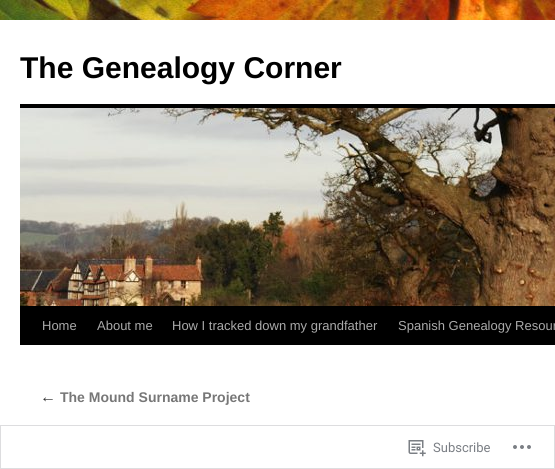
#include <cairo/cairo.h>
#include <math.h>
#include <stddef.h>


static void draw_image(cairo_t *cr, const char *path, double x, double y, double w, double h) {
  cairo_surface_t *image = cairo_image_surface_create_from_png(path);
  cairo_save(cr);
  cairo_set_source_surface(cr, image, x, y);
  cairo_rectangle(cr, x, y, w, h);
  cairo_fill(cr);
  cairo_restore(cr);
  cairo_surface_destroy(image);
}

static void draw(cairo_t *cr) {
  cairo_set_source_rgb(cr, 1, 1, 1);
  cairo_paint(cr);
  draw_image(cr, "images/1.png", 0, 0, 555, 20);
  cairo_set_source_rgb(cr, 0, 0, 0);
  cairo_rectangle(cr, 20, 104, 535, 4);
  cairo_fill(cr);
  cairo_rectangle(cr, 20, 306, 535, 39);
  cairo_fill(cr);
  draw_image(cr, "images/2.png", 20, 108, 535, 198);
  cairo_rectangle(cr, 0.5, 425.5, 554, 43);
  cairo_set_source_rgba(cr, 220 / 255.0, 220 / 255.0, 222 / 255.0, 0.98);
  cairo_set_line_width(cr, 1);
  cairo_stroke(cr);
  draw_image(cr, "images/3.png", 408, 440, 18, 17);
  draw_image(cr, "images/4.png", 513, 445, 18, 4);
  cairo_select_font_face(cr, "Liberation Sans", CAIRO_FONT_SLANT_NORMAL, CAIRO_FONT_WEIGHT_BOLD);
  cairo_set_font_size(cr, 30);
  cairo_set_source_rgb(cr, 0, 0, 0);
  cairo_move_to(cr, 20, 78);
  cairo_show_text(cr, "The Genealogy Corner");
  cairo_select_font_face(cr, "Liberation Sans", CAIRO_FONT_SLANT_NORMAL, CAIRO_FONT_WEIGHT_NORMAL);
  cairo_set_font_size(cr, 13);
  cairo_set_source_rgb(cr, 170 / 255.0, 170 / 255.0, 170 / 255.0);
  cairo_move_to(cr, 42, 330);
  cairo_show_text(cr, "Home");
  cairo_move_to(cr, 97, 330);
  cairo_show_text(cr, "About me");
  cairo_move_to(cr, 172, 330);
  cairo_show_text(cr, "How I tracked down my grandfather");
  cairo_move_to(cr, 398, 330);
  cairo_show_text(cr, "Spanish Genealogy Resour");
  cairo_select_font_face(cr, "Liberation Serif", CAIRO_FONT_SLANT_ITALIC, CAIRO_FONT_WEIGHT_NORMAL);
  cairo_set_font_size(cr, 16);
  cairo_set_source_rgb(cr, 51 / 255.0, 51 / 255.0, 51 / 255.0);
  cairo_move_to(cr, 40, 402);
  cairo_show_text(cr, "←");
  cairo_select_font_face(cr, "Liberation Sans", CAIRO_FONT_SLANT_NORMAL, CAIRO_FONT_WEIGHT_BOLD);
  cairo_set_font_size(cr, 14);
  cairo_set_source_rgb(cr, 119 / 255.0, 119 / 255.0, 119 / 255.0);
  cairo_move_to(cr, 60, 402);
  cairo_show_text(cr, "The Mound Surname Project");
  cairo_select_font_face(cr, "Roboto", CAIRO_FONT_SLANT_NORMAL, CAIRO_FONT_WEIGHT_NORMAL);
  cairo_set_font_size(cr, 13);
  cairo_set_source_rgb(cr, 123 / 255.0, 127 / 255.0, 133 / 255.0);
  cairo_move_to(cr, 433, 452);
  cairo_show_text(cr, "Subscribe");
}

int main(void) {
  cairo_surface_t *surface = cairo_image_surface_create(CAIRO_FORMAT_RGB24, 555, 469);
  cairo_t *cr = cairo_create(surface);
  cairo_font_options_t *options = cairo_font_options_create();
  cairo_font_options_set_hint_metrics(options, CAIRO_HINT_METRICS_OFF);
  cairo_font_options_set_hint_style(options, CAIRO_HINT_STYLE_NONE);
  cairo_set_font_options(cr, options);
  cairo_set_miter_limit(cr, 4);
  draw(cr);
  cairo_surface_write_to_png(surface, "out.png");
  cairo_font_options_destroy(options);
  cairo_destroy(cr);
  cairo_surface_destroy(surface);
  return 0;
}
